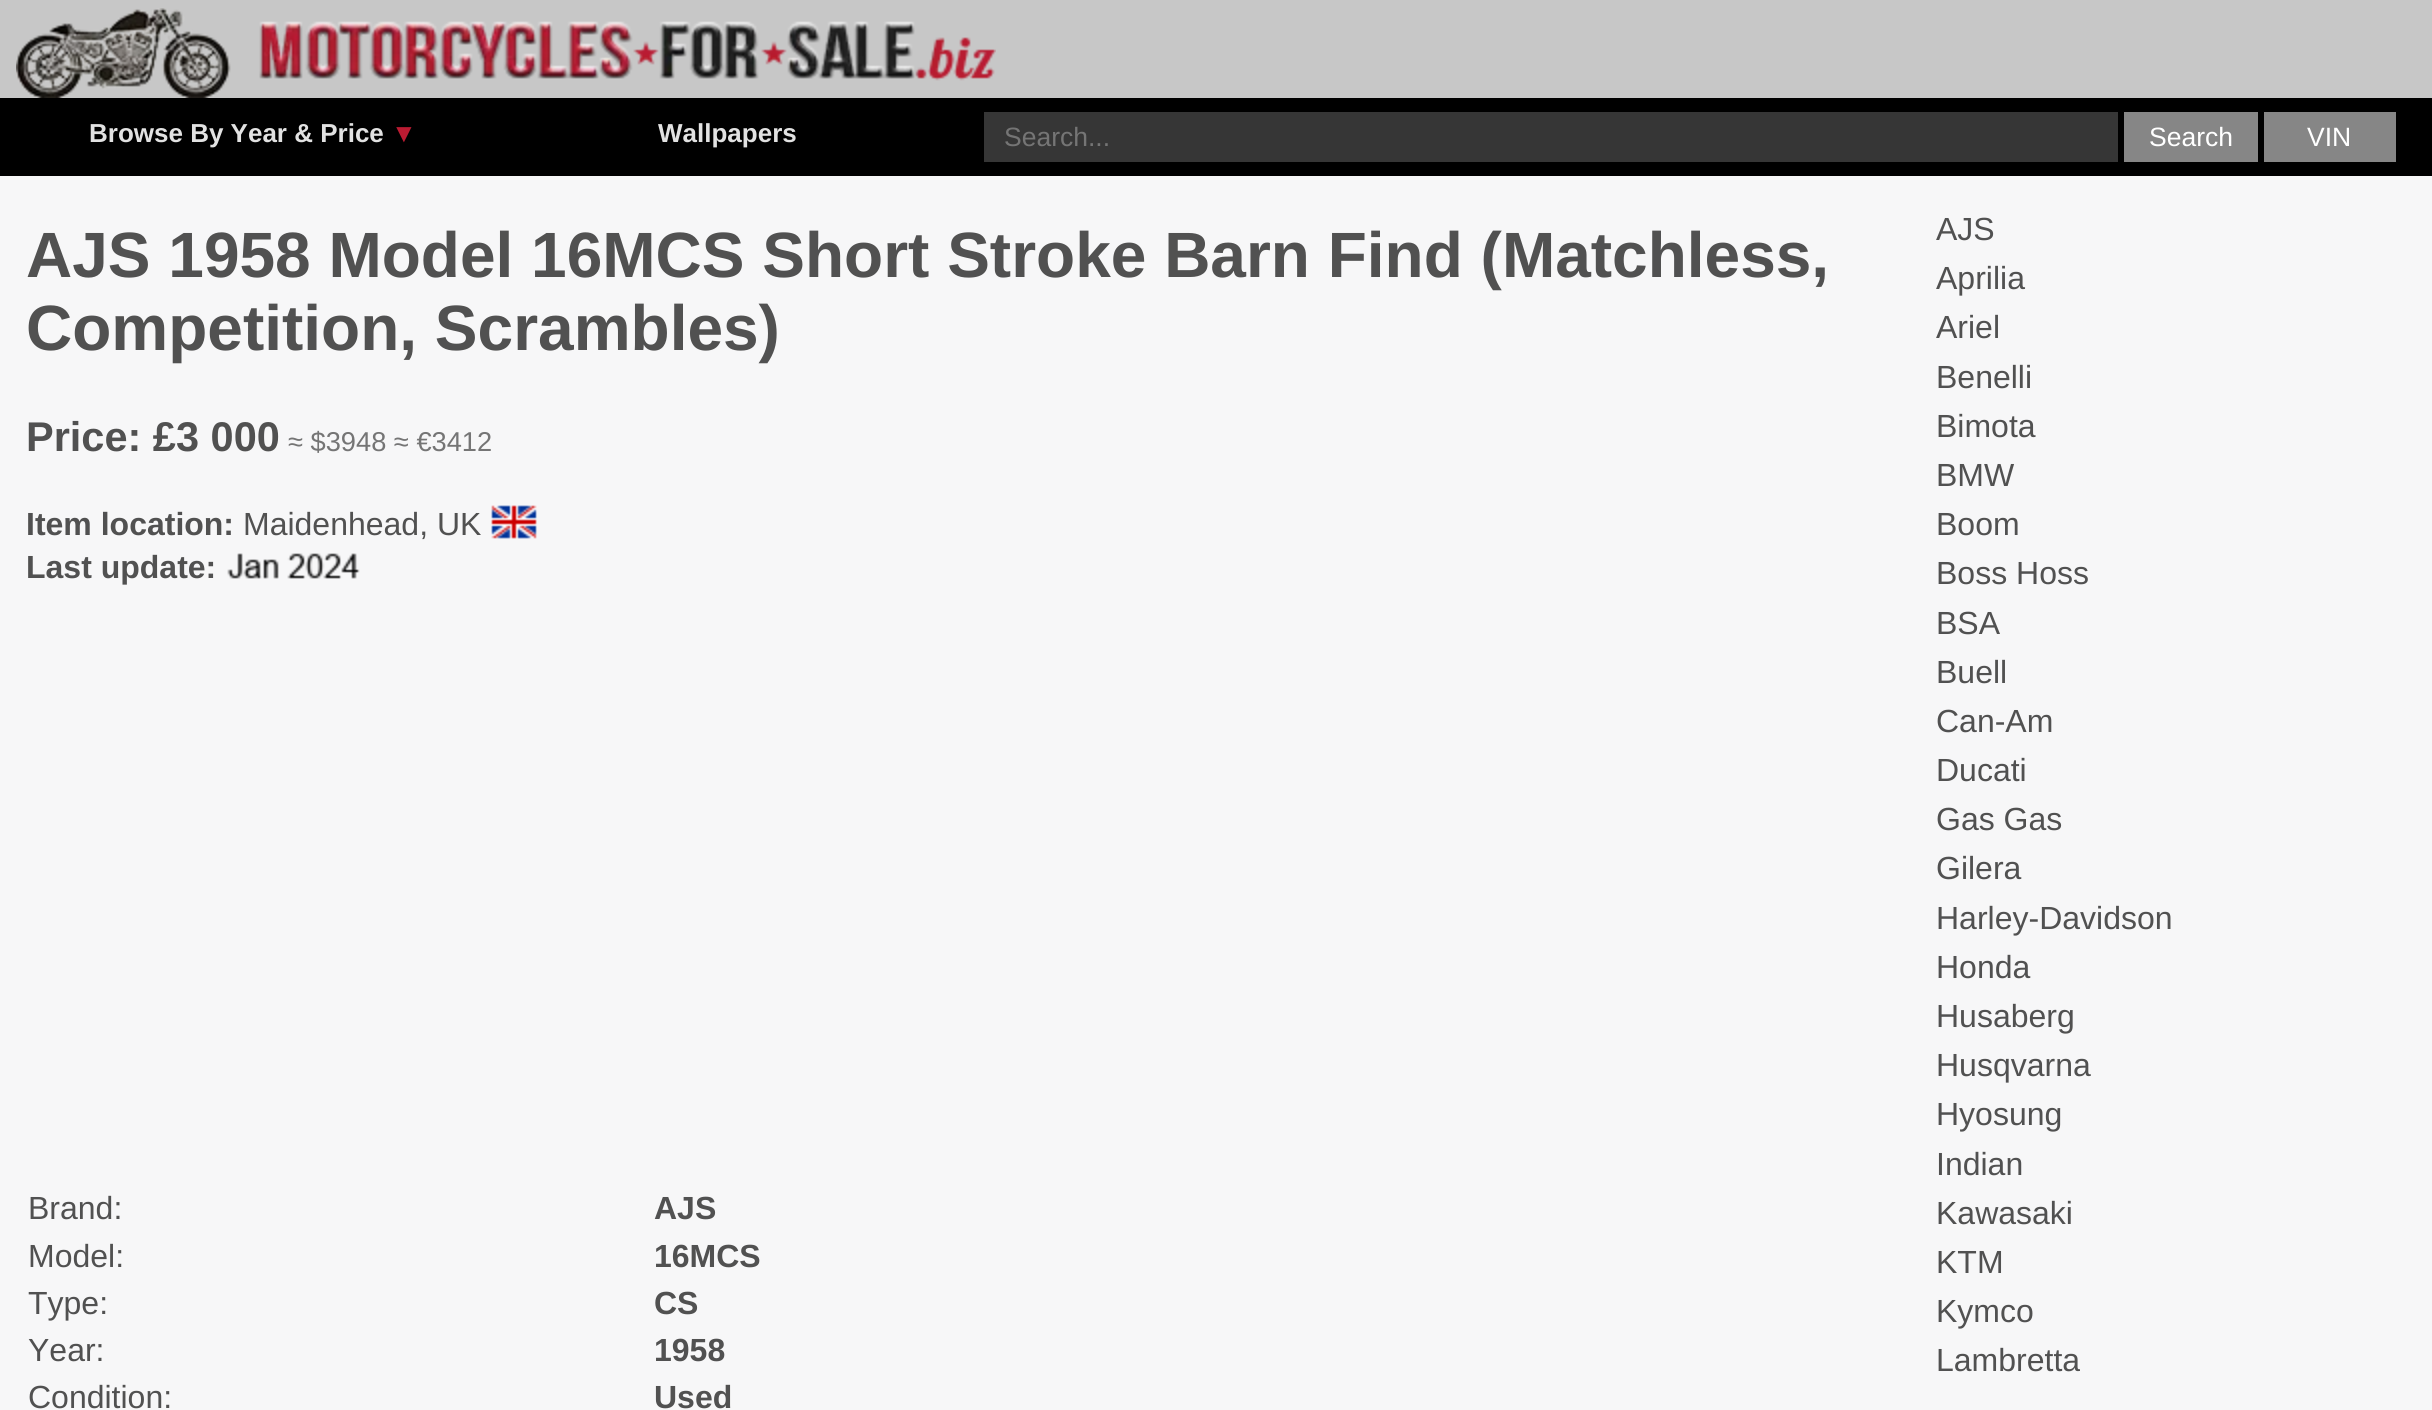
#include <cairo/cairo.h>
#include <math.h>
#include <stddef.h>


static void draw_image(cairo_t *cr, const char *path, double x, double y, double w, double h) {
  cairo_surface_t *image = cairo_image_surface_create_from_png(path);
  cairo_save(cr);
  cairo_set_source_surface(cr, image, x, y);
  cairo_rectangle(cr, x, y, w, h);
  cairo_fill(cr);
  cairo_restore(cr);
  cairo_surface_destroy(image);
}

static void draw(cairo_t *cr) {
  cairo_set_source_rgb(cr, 247 / 255.0, 247 / 255.0, 248 / 255.0);
  cairo_paint(cr);
  cairo_set_source_rgb(cr, 199 / 255.0, 199 / 255.0, 199 / 255.0);
  cairo_rectangle(cr, 0, 0, 2432, 98);
  cairo_fill(cr);
  draw_image(cr, "images/1.png", 16, 8, 980, 90);
  cairo_set_source_rgb(cr, 0, 0, 0);
  cairo_rectangle(cr, 0, 98, 2432, 78);
  cairo_fill(cr);
  cairo_set_source_rgb(cr, 54 / 255.0, 54 / 255.0, 54 / 255.0);
  cairo_rectangle(cr, 984, 112, 1134, 50);
  cairo_fill(cr);
  cairo_set_source_rgb(cr, 134 / 255.0, 134 / 255.0, 134 / 255.0);
  cairo_rectangle(cr, 2124, 112, 134, 50);
  cairo_fill(cr);
  cairo_rectangle(cr, 2264, 112, 132, 50);
  cairo_fill(cr);
  draw_image(cr, "images/2.png", 491, 505, 46, 34);
  draw_image(cr, "images/3.png", 227, 553, 133, 26);
  cairo_select_font_face(cr, "Liberation Sans", CAIRO_FONT_SLANT_NORMAL, CAIRO_FONT_WEIGHT_BOLD);
  cairo_set_font_size(cr, 26);
  cairo_set_source_rgb(cr, 226 / 255.0, 226 / 255.0, 226 / 255.0);
  cairo_move_to(cr, 89, 142);
  cairo_show_text(cr, "Browse By Year & Price");
  cairo_set_source_rgb(cr, 188 / 255.0, 27 / 255.0, 50 / 255.0);
  cairo_move_to(cr, 391, 142);
  cairo_show_text(cr, "▼");
  cairo_set_source_rgb(cr, 226 / 255.0, 226 / 255.0, 226 / 255.0);
  cairo_move_to(cr, 658, 142);
  cairo_show_text(cr, "Wallpapers");
  cairo_select_font_face(cr, "Liberation Sans", CAIRO_FONT_SLANT_NORMAL, CAIRO_FONT_WEIGHT_NORMAL);
  cairo_set_font_size(cr, 26.5);
  cairo_set_source_rgb(cr, 117 / 255.0, 117 / 255.0, 117 / 255.0);
  cairo_move_to(cr, 1004, 146);
  cairo_show_text(cr, "Search...");
  cairo_set_source_rgb(cr, 1, 1, 1);
  cairo_move_to(cr, 2149, 146);
  cairo_show_text(cr, "Search");
  cairo_move_to(cr, 2307, 146);
  cairo_show_text(cr, "VIN");
  cairo_select_font_face(cr, "Liberation Sans", CAIRO_FONT_SLANT_NORMAL, CAIRO_FONT_WEIGHT_BOLD);
  cairo_set_font_size(cr, 64);
  cairo_set_source_rgb(cr, 81 / 255.0, 81 / 255.0, 81 / 255.0);
  cairo_move_to(cr, 26, 277);
  cairo_show_text(cr, "AJS 1958 Model 16MCS Short Stroke Barn Find (Matchless,");
  cairo_move_to(cr, 26, 350);
  cairo_show_text(cr, "Competition, Scrambles)");
  cairo_set_font_size(cr, 41.5);
  cairo_move_to(cr, 26, 451);
  cairo_show_text(cr, "Price: £3 000");
  cairo_select_font_face(cr, "Liberation Sans", CAIRO_FONT_SLANT_NORMAL, CAIRO_FONT_WEIGHT_NORMAL);
  cairo_set_font_size(cr, 27.25);
  cairo_set_source_rgb(cr, 117 / 255.0, 117 / 255.0, 117 / 255.0);
  cairo_move_to(cr, 288, 451);
  cairo_show_text(cr, "≈ $3948 ≈ €3412");
  cairo_select_font_face(cr, "Liberation Sans", CAIRO_FONT_SLANT_NORMAL, CAIRO_FONT_WEIGHT_BOLD);
  cairo_set_font_size(cr, 32);
  cairo_set_source_rgb(cr, 81 / 255.0, 81 / 255.0, 81 / 255.0);
  cairo_move_to(cr, 26, 535);
  cairo_show_text(cr, "Item location:");
  cairo_select_font_face(cr, "Liberation Sans", CAIRO_FONT_SLANT_NORMAL, CAIRO_FONT_WEIGHT_NORMAL);
  cairo_move_to(cr, 243, 535);
  cairo_show_text(cr, "Maidenhead, UK");
  cairo_select_font_face(cr, "Liberation Sans", CAIRO_FONT_SLANT_NORMAL, CAIRO_FONT_WEIGHT_BOLD);
  cairo_move_to(cr, 26, 578);
  cairo_show_text(cr, "Last update:");
  cairo_select_font_face(cr, "Liberation Sans", CAIRO_FONT_SLANT_NORMAL, CAIRO_FONT_WEIGHT_NORMAL);
  cairo_move_to(cr, 28, 1219);
  cairo_show_text(cr, "Brand:");
  cairo_select_font_face(cr, "Liberation Sans", CAIRO_FONT_SLANT_NORMAL, CAIRO_FONT_WEIGHT_BOLD);
  cairo_move_to(cr, 654, 1219);
  cairo_show_text(cr, "AJS");
  cairo_select_font_face(cr, "Liberation Sans", CAIRO_FONT_SLANT_NORMAL, CAIRO_FONT_WEIGHT_NORMAL);
  cairo_move_to(cr, 28, 1267);
  cairo_show_text(cr, "Model:");
  cairo_select_font_face(cr, "Liberation Sans", CAIRO_FONT_SLANT_NORMAL, CAIRO_FONT_WEIGHT_BOLD);
  cairo_move_to(cr, 654, 1267);
  cairo_show_text(cr, "16MCS");
  cairo_select_font_face(cr, "Liberation Sans", CAIRO_FONT_SLANT_NORMAL, CAIRO_FONT_WEIGHT_NORMAL);
  cairo_move_to(cr, 28, 1314);
  cairo_show_text(cr, "Type:");
  cairo_select_font_face(cr, "Liberation Sans", CAIRO_FONT_SLANT_NORMAL, CAIRO_FONT_WEIGHT_BOLD);
  cairo_move_to(cr, 654, 1314);
  cairo_show_text(cr, "CS");
  cairo_select_font_face(cr, "Liberation Sans", CAIRO_FONT_SLANT_NORMAL, CAIRO_FONT_WEIGHT_NORMAL);
  cairo_move_to(cr, 28, 1361);
  cairo_show_text(cr, "Year:");
  cairo_select_font_face(cr, "Liberation Sans", CAIRO_FONT_SLANT_NORMAL, CAIRO_FONT_WEIGHT_BOLD);
  cairo_move_to(cr, 654, 1361);
  cairo_show_text(cr, "1958");
  cairo_select_font_face(cr, "Liberation Sans", CAIRO_FONT_SLANT_NORMAL, CAIRO_FONT_WEIGHT_NORMAL);
  cairo_move_to(cr, 28, 1408);
  cairo_show_text(cr, "Condition:");
  cairo_select_font_face(cr, "Liberation Sans", CAIRO_FONT_SLANT_NORMAL, CAIRO_FONT_WEIGHT_BOLD);
  cairo_move_to(cr, 654, 1408);
  cairo_show_text(cr, "Used");
  cairo_select_font_face(cr, "Liberation Sans", CAIRO_FONT_SLANT_NORMAL, CAIRO_FONT_WEIGHT_NORMAL);
  cairo_move_to(cr, 1936, 240);
  cairo_show_text(cr, "AJS");
  cairo_move_to(cr, 1936, 289);
  cairo_show_text(cr, "Aprilia");
  cairo_move_to(cr, 1936, 338);
  cairo_show_text(cr, "Ariel");
  cairo_move_to(cr, 1936, 388);
  cairo_show_text(cr, "Benelli");
  cairo_move_to(cr, 1936, 437);
  cairo_show_text(cr, "Bimota");
  cairo_move_to(cr, 1936, 486);
  cairo_show_text(cr, "BMW");
  cairo_move_to(cr, 1936, 535);
  cairo_show_text(cr, "Boom");
  cairo_move_to(cr, 1936, 584);
  cairo_show_text(cr, "Boss Hoss");
  cairo_move_to(cr, 1936, 634);
  cairo_show_text(cr, "BSA");
  cairo_move_to(cr, 1936, 683);
  cairo_show_text(cr, "Buell");
  cairo_move_to(cr, 1936, 732);
  cairo_show_text(cr, "Can-Am");
  cairo_move_to(cr, 1936, 781);
  cairo_show_text(cr, "Ducati");
  cairo_move_to(cr, 1936, 830);
  cairo_show_text(cr, "Gas Gas");
  cairo_move_to(cr, 1936, 879);
  cairo_show_text(cr, "Gilera");
  cairo_move_to(cr, 1936, 929);
  cairo_show_text(cr, "Harley-Davidson");
  cairo_move_to(cr, 1936, 978);
  cairo_show_text(cr, "Honda");
  cairo_move_to(cr, 1936, 1027);
  cairo_show_text(cr, "Husaberg");
  cairo_move_to(cr, 1936, 1076);
  cairo_show_text(cr, "Husqvarna");
  cairo_move_to(cr, 1936, 1125);
  cairo_show_text(cr, "Hyosung");
  cairo_move_to(cr, 1936, 1175);
  cairo_show_text(cr, "Indian");
  cairo_move_to(cr, 1936, 1224);
  cairo_show_text(cr, "Kawasaki");
  cairo_move_to(cr, 1936, 1273);
  cairo_show_text(cr, "KTM");
  cairo_move_to(cr, 1936, 1322);
  cairo_show_text(cr, "Kymco");
  cairo_move_to(cr, 1936, 1371);
  cairo_show_text(cr, "Lambretta");
}

int main(void) {
  cairo_surface_t *surface = cairo_image_surface_create(CAIRO_FORMAT_RGB24, 2432, 1410);
  cairo_t *cr = cairo_create(surface);
  cairo_font_options_t *options = cairo_font_options_create();
  cairo_font_options_set_hint_metrics(options, CAIRO_HINT_METRICS_OFF);
  cairo_font_options_set_hint_style(options, CAIRO_HINT_STYLE_NONE);
  cairo_set_font_options(cr, options);
  cairo_set_miter_limit(cr, 4);
  draw(cr);
  cairo_surface_write_to_png(surface, "out.png");
  cairo_font_options_destroy(options);
  cairo_destroy(cr);
  cairo_surface_destroy(surface);
  return 0;
}
